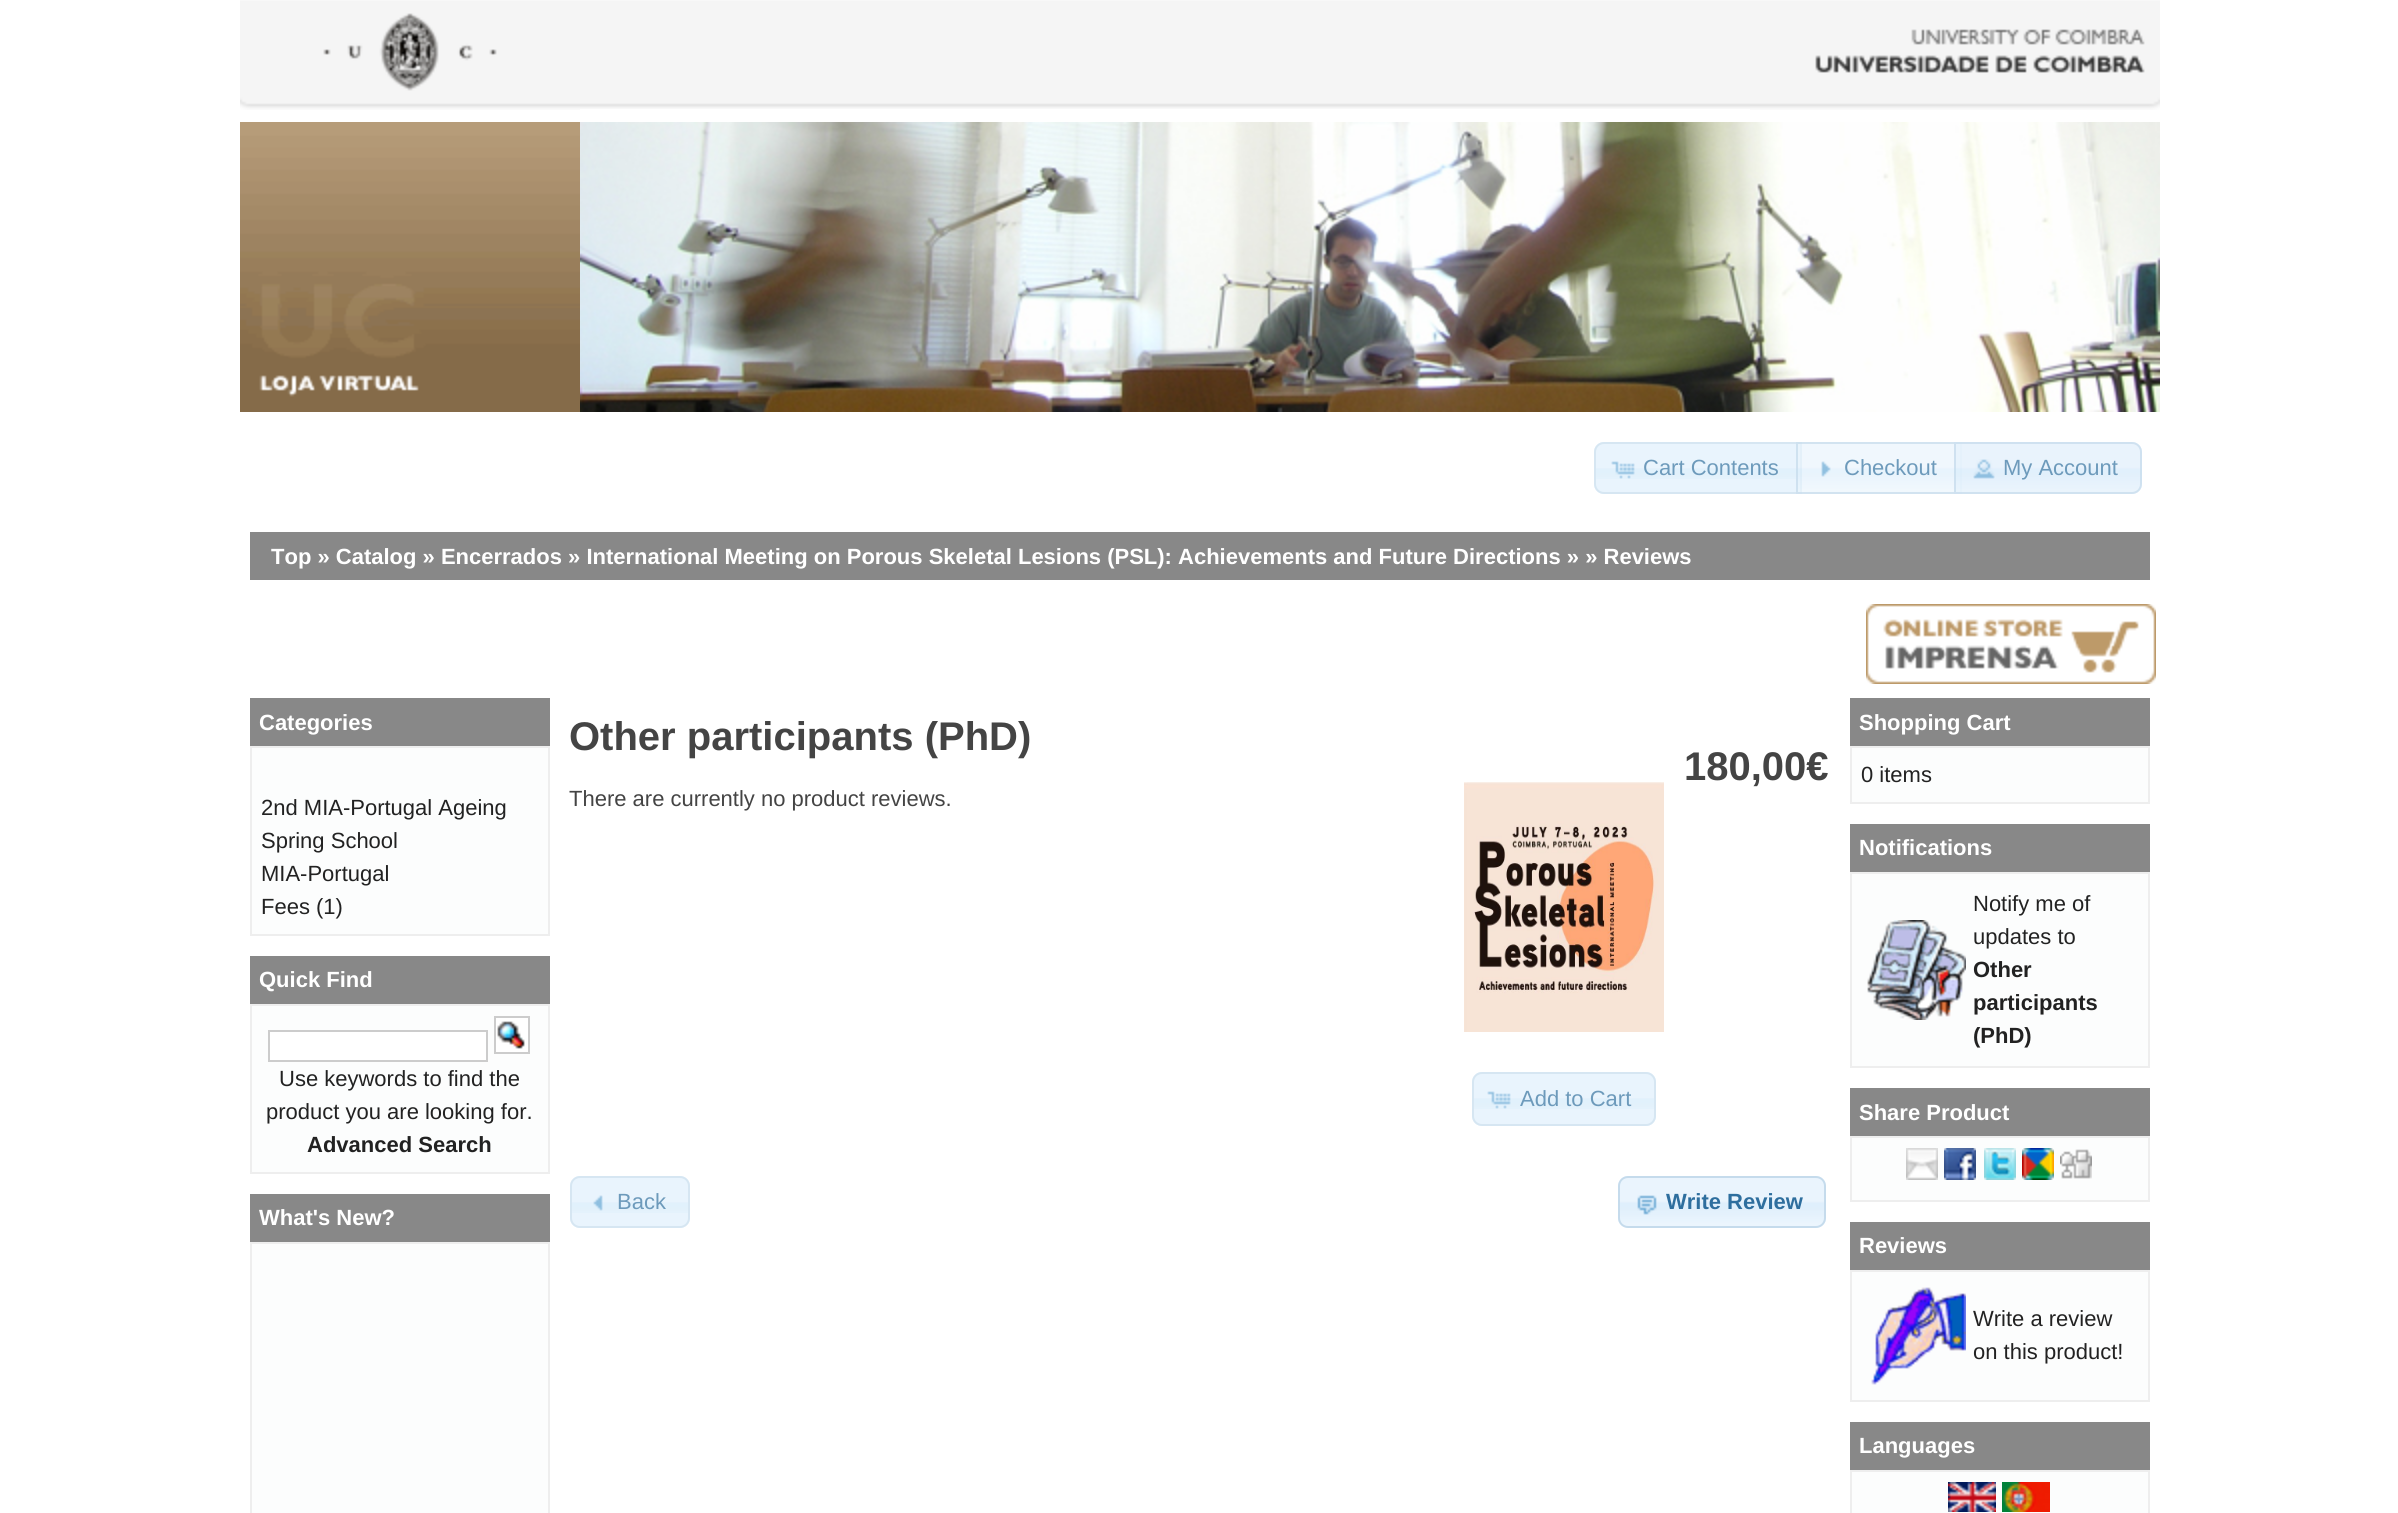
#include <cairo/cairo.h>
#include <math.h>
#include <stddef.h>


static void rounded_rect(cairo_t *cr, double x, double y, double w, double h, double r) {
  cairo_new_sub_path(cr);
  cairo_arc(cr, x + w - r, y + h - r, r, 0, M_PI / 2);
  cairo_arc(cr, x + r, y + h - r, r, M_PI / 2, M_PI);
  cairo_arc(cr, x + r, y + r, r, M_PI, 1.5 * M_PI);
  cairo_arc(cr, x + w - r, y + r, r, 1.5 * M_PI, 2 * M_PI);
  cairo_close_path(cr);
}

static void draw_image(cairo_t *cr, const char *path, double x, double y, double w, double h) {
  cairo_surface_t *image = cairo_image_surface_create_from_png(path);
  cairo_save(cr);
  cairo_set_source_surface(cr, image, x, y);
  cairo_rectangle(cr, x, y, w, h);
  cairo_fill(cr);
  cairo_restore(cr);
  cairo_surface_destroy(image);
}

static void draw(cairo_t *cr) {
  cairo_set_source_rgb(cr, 1, 1, 1);
  cairo_paint(cr);
  draw_image(cr, "images/1.png", 240, 0, 340, 13);
  draw_image(cr, "images/2.png", 240, 13, 340, 97);
  draw_image(cr, "images/3.png", 580, 0, 1580, 109);
  draw_image(cr, "images/4.png", 1750, 29, 410, 81);
  draw_image(cr, "images/5.png", 240, 122, 340, 290);
  draw_image(cr, "images/6.png", 580, 122, 1580, 290);
  cairo_set_source_rgb(cr, 233 / 255.0, 244 / 255.0, 253 / 255.0);
  cairo_new_path(cr);
  cairo_move_to(cr, 1604, 442);
  cairo_line_to(cr, 1802, 442);
  cairo_line_to(cr, 1802, 494);
  cairo_line_to(cr, 1604, 494);
  cairo_curve_to(cr, 1598.5, 494, 1594, 489.5, 1594, 484);
  cairo_line_to(cr, 1594, 452);
  cairo_curve_to(cr, 1594, 446.5, 1598.5, 442, 1604, 442);
  cairo_close_path(cr);
  cairo_fill(cr);
  draw_image(cr, "images/7.png", 1596, 468, 204, 11);
  cairo_new_path(cr);
  cairo_move_to(cr, 1604, 443);
  cairo_line_to(cr, 1801, 443);
  cairo_line_to(cr, 1801, 493);
  cairo_line_to(cr, 1604, 493);
  cairo_curve_to(cr, 1599, 493, 1595, 489, 1595, 484);
  cairo_line_to(cr, 1595, 452);
  cairo_curve_to(cr, 1595, 447, 1599, 443, 1604, 443);
  cairo_close_path(cr);
  cairo_set_source_rgb(cr, 214 / 255.0, 230 / 255.0, 242 / 255.0);
  cairo_stroke(cr);
  draw_image(cr, "images/8.png", 1611, 461, 24, 18);
  draw_image(cr, "images/9.png", 1796, 442, 166, 52);
  cairo_rectangle(cr, 1797, 443, 164, 50);
  cairo_set_source_rgba(cr, 197 / 255.0, 219 / 255.0, 236 / 255.0, 0.7);
  cairo_stroke(cr);
  draw_image(cr, "images/10.png", 1821, 461, 10, 16);
  cairo_set_source_rgba(cr, 223 / 255.0, 239 / 255.0, 252 / 255.0, 0.7);
  cairo_new_path(cr);
  cairo_move_to(cr, 1954, 442);
  cairo_line_to(cr, 2132, 442);
  cairo_curve_to(cr, 2137.5, 442, 2142, 446.5, 2142, 452);
  cairo_line_to(cr, 2142, 484);
  cairo_curve_to(cr, 2142, 489.5, 2137.5, 494, 2132, 494);
  cairo_line_to(cr, 1954, 494);
  cairo_close_path(cr);
  cairo_fill(cr);
  draw_image(cr, "images/11.png", 1954, 442, 188, 52);
  cairo_new_path(cr);
  cairo_move_to(cr, 1955, 443);
  cairo_line_to(cr, 2132, 443);
  cairo_curve_to(cr, 2137, 443, 2141, 447, 2141, 452);
  cairo_line_to(cr, 2141, 484);
  cairo_curve_to(cr, 2141, 489, 2137, 493, 2132, 493);
  cairo_line_to(cr, 1955, 493);
  cairo_close_path(cr);
  cairo_set_source_rgba(cr, 197 / 255.0, 219 / 255.0, 236 / 255.0, 0.7);
  cairo_stroke(cr);
  draw_image(cr, "images/12.png", 1973, 459, 22, 20);
  cairo_set_source_rgb(cr, 136 / 255.0, 136 / 255.0, 136 / 255.0);
  cairo_rectangle(cr, 250, 532, 1900, 48);
  cairo_fill(cr);
  draw_image(cr, "images/13.png", 1866, 604, 290, 80);
  cairo_rectangle(cr, 250, 698, 300, 48);
  cairo_fill(cr);
  cairo_set_source_rgb(cr, 252 / 255.0, 253 / 255.0, 253 / 255.0);
  cairo_rectangle(cr, 251, 747, 298, 188);
  cairo_fill_preserve(cr);
  cairo_set_source_rgb(cr, 238 / 255.0, 238 / 255.0, 238 / 255.0);
  cairo_stroke(cr);
  cairo_set_source_rgb(cr, 136 / 255.0, 136 / 255.0, 136 / 255.0);
  cairo_rectangle(cr, 250, 956, 300, 48);
  cairo_fill(cr);
  cairo_set_source_rgb(cr, 252 / 255.0, 253 / 255.0, 253 / 255.0);
  cairo_rectangle(cr, 251, 1005, 298, 168);
  cairo_fill_preserve(cr);
  cairo_set_source_rgb(cr, 238 / 255.0, 238 / 255.0, 238 / 255.0);
  cairo_stroke(cr);
  cairo_set_source_rgb(cr, 1, 1, 1);
  cairo_rectangle(cr, 269, 1031, 218, 30);
  cairo_fill_preserve(cr);
  cairo_set_source_rgb(cr, 204 / 255.0, 204 / 255.0, 204 / 255.0);
  cairo_stroke(cr);
  cairo_set_source_rgb(cr, 1, 1, 1);
  cairo_rectangle(cr, 495, 1017, 34, 36);
  cairo_fill_preserve(cr);
  cairo_set_source_rgb(cr, 204 / 255.0, 204 / 255.0, 204 / 255.0);
  cairo_stroke(cr);
  draw_image(cr, "images/14.png", 497, 1021, 28, 28);
  cairo_set_source_rgb(cr, 136 / 255.0, 136 / 255.0, 136 / 255.0);
  cairo_rectangle(cr, 250, 1194, 300, 48);
  cairo_fill(cr);
  cairo_set_source_rgb(cr, 252 / 255.0, 253 / 255.0, 253 / 255.0);
  cairo_rectangle(cr, 251, 1243, 298, 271);
  cairo_fill_preserve(cr);
  cairo_set_source_rgb(cr, 238 / 255.0, 238 / 255.0, 238 / 255.0);
  cairo_stroke(cr);
  draw_image(cr, "images/15.png", 1464, 782, 200, 250);
  cairo_set_source_rgb(cr, 233 / 255.0, 244 / 255.0, 253 / 255.0);
  rounded_rect(cr, 1472, 1072, 184, 54, 10);
  cairo_fill(cr);
  draw_image(cr, "images/16.png", 1474, 1098, 180, 11);
  rounded_rect(cr, 1473, 1073, 182, 52, 9);
  cairo_set_source_rgb(cr, 214 / 255.0, 230 / 255.0, 242 / 255.0);
  cairo_stroke(cr);
  draw_image(cr, "images/8.png", 1487, 1091, 24, 18);
  cairo_set_source_rgb(cr, 233 / 255.0, 244 / 255.0, 253 / 255.0);
  rounded_rect(cr, 570, 1176, 120, 52, 10);
  cairo_fill(cr);
  draw_image(cr, "images/17.png", 572, 1202, 116, 11);
  rounded_rect(cr, 571, 1177, 118, 50, 9);
  cairo_set_source_rgb(cr, 214 / 255.0, 230 / 255.0, 242 / 255.0);
  cairo_stroke(cr);
  draw_image(cr, "images/18.png", 593, 1195, 10, 16);
  draw_image(cr, "images/19.png", 1618, 1176, 208, 52);
  rounded_rect(cr, 1619, 1177, 206, 50, 9);
  cairo_set_source_rgb(cr, 197 / 255.0, 219 / 255.0, 236 / 255.0);
  cairo_stroke(cr);
  draw_image(cr, "images/20.png", 1637, 1195, 20, 20);
  cairo_set_source_rgb(cr, 136 / 255.0, 136 / 255.0, 136 / 255.0);
  cairo_rectangle(cr, 1850, 698, 300, 48);
  cairo_fill(cr);
  cairo_set_source_rgb(cr, 252 / 255.0, 253 / 255.0, 253 / 255.0);
  cairo_rectangle(cr, 1851, 747, 298, 56);
  cairo_fill_preserve(cr);
  cairo_set_source_rgb(cr, 238 / 255.0, 238 / 255.0, 238 / 255.0);
  cairo_stroke(cr);
  cairo_set_source_rgb(cr, 136 / 255.0, 136 / 255.0, 136 / 255.0);
  cairo_rectangle(cr, 1850, 824, 300, 48);
  cairo_fill(cr);
  cairo_set_source_rgb(cr, 252 / 255.0, 253 / 255.0, 253 / 255.0);
  cairo_rectangle(cr, 1851, 873, 298, 194);
  cairo_fill_preserve(cr);
  cairo_set_source_rgb(cr, 238 / 255.0, 238 / 255.0, 238 / 255.0);
  cairo_stroke(cr);
  draw_image(cr, "images/21.png", 1867, 920, 99, 100);
  cairo_set_source_rgb(cr, 136 / 255.0, 136 / 255.0, 136 / 255.0);
  cairo_rectangle(cr, 1850, 1088, 300, 48);
  cairo_fill(cr);
  cairo_set_source_rgb(cr, 252 / 255.0, 253 / 255.0, 253 / 255.0);
  cairo_rectangle(cr, 1851, 1137, 298, 64);
  cairo_fill_preserve(cr);
  cairo_set_source_rgb(cr, 238 / 255.0, 238 / 255.0, 238 / 255.0);
  cairo_stroke(cr);
  draw_image(cr, "images/22.png", 1906, 1148, 32, 32);
  draw_image(cr, "images/23.png", 1944, 1148, 32, 32);
  draw_image(cr, "images/24.png", 1984, 1148, 32, 32);
  draw_image(cr, "images/25.png", 2022, 1148, 32, 32);
  draw_image(cr, "images/26.png", 2060, 1149, 32, 30);
  cairo_set_source_rgb(cr, 136 / 255.0, 136 / 255.0, 136 / 255.0);
  cairo_rectangle(cr, 1850, 1222, 300, 48);
  cairo_fill(cr);
  cairo_set_source_rgb(cr, 252 / 255.0, 253 / 255.0, 253 / 255.0);
  cairo_rectangle(cr, 1851, 1271, 298, 130);
  cairo_fill_preserve(cr);
  cairo_set_source_rgb(cr, 238 / 255.0, 238 / 255.0, 238 / 255.0);
  cairo_stroke(cr);
  draw_image(cr, "images/27.png", 1871, 1287, 95, 98);
  cairo_set_source_rgb(cr, 136 / 255.0, 136 / 255.0, 136 / 255.0);
  cairo_rectangle(cr, 1850, 1422, 300, 48);
  cairo_fill(cr);
  cairo_set_source_rgb(cr, 252 / 255.0, 253 / 255.0, 253 / 255.0);
  cairo_rectangle(cr, 1851, 1471, 298, 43);
  cairo_fill_preserve(cr);
  cairo_set_source_rgb(cr, 238 / 255.0, 238 / 255.0, 238 / 255.0);
  cairo_stroke(cr);
  draw_image(cr, "images/28.png", 1948, 1482, 48, 30);
  draw_image(cr, "images/29.png", 2002, 1482, 48, 30);
  cairo_select_font_face(cr, "Liberation Sans", CAIRO_FONT_SLANT_NORMAL, CAIRO_FONT_WEIGHT_NORMAL);
  cairo_set_font_size(cr, 22);
  cairo_set_source_rgb(cr, 109 / 255.0, 154 / 255.0, 187 / 255.0);
  cairo_move_to(cr, 1643, 475);
  cairo_show_text(cr, "Cart Contents");
  cairo_move_to(cr, 1844, 475);
  cairo_show_text(cr, "Checkout");
  cairo_move_to(cr, 2003, 475);
  cairo_show_text(cr, "My Account");
  cairo_select_font_face(cr, "Liberation Sans", CAIRO_FONT_SLANT_NORMAL, CAIRO_FONT_WEIGHT_BOLD);
  cairo_set_source_rgb(cr, 1, 1, 1);
  cairo_move_to(cr, 271, 564);
  cairo_show_text(cr, "Top » Catalog » Encerrados » International Meeting on Porous Skeletal Lesions (PSL): Achievements and Future Directions » » Reviews");
  cairo_move_to(cr, 259, 730);
  cairo_show_text(cr, "Categories");
  cairo_select_font_face(cr, "Liberation Sans", CAIRO_FONT_SLANT_NORMAL, CAIRO_FONT_WEIGHT_NORMAL);
  cairo_set_source_rgb(cr, 34 / 255.0, 34 / 255.0, 34 / 255.0);
  cairo_move_to(cr, 261, 815);
  cairo_show_text(cr, "2nd MIA-Portugal Ageing");
  cairo_move_to(cr, 261, 848);
  cairo_show_text(cr, "Spring School");
  cairo_move_to(cr, 261, 881);
  cairo_show_text(cr, "MIA-Portugal");
  cairo_move_to(cr, 261, 914);
  cairo_show_text(cr, "Fees (1)");
  cairo_select_font_face(cr, "Liberation Sans", CAIRO_FONT_SLANT_NORMAL, CAIRO_FONT_WEIGHT_BOLD);
  cairo_set_source_rgb(cr, 1, 1, 1);
  cairo_move_to(cr, 259, 987);
  cairo_show_text(cr, "Quick Find");
  cairo_select_font_face(cr, "Liberation Sans", CAIRO_FONT_SLANT_NORMAL, CAIRO_FONT_WEIGHT_NORMAL);
  cairo_set_source_rgb(cr, 34 / 255.0, 34 / 255.0, 34 / 255.0);
  cairo_move_to(cr, 279, 1086);
  cairo_show_text(cr, "Use keywords to find the");
  cairo_move_to(cr, 266, 1119);
  cairo_show_text(cr, "product you are looking for.");
  cairo_select_font_face(cr, "Liberation Sans", CAIRO_FONT_SLANT_NORMAL, CAIRO_FONT_WEIGHT_BOLD);
  cairo_move_to(cr, 307, 1152);
  cairo_show_text(cr, "Advanced Search");
  cairo_set_source_rgb(cr, 1, 1, 1);
  cairo_move_to(cr, 259, 1225);
  cairo_show_text(cr, "What's New?");
  cairo_set_font_size(cr, 40);
  cairo_set_source_rgb(cr, 68 / 255.0, 68 / 255.0, 68 / 255.0);
  cairo_move_to(cr, 569, 750);
  cairo_show_text(cr, "Other participants (PhD)");
  cairo_move_to(cr, 1684, 780);
  cairo_show_text(cr, "180,00€");
  cairo_select_font_face(cr, "Liberation Sans", CAIRO_FONT_SLANT_NORMAL, CAIRO_FONT_WEIGHT_NORMAL);
  cairo_set_font_size(cr, 22);
  cairo_move_to(cr, 569, 806);
  cairo_show_text(cr, "There are currently no product reviews.");
  cairo_set_source_rgb(cr, 109 / 255.0, 154 / 255.0, 187 / 255.0);
  cairo_move_to(cr, 1520, 1106);
  cairo_show_text(cr, "Add to Cart");
  cairo_move_to(cr, 617, 1209);
  cairo_show_text(cr, "Back");
  cairo_select_font_face(cr, "Liberation Sans", CAIRO_FONT_SLANT_NORMAL, CAIRO_FONT_WEIGHT_BOLD);
  cairo_set_source_rgb(cr, 46 / 255.0, 110 / 255.0, 158 / 255.0);
  cairo_move_to(cr, 1666, 1209);
  cairo_show_text(cr, "Write Review");
  cairo_set_source_rgb(cr, 1, 1, 1);
  cairo_move_to(cr, 1859, 730);
  cairo_show_text(cr, "Shopping Cart");
  cairo_select_font_face(cr, "Liberation Sans", CAIRO_FONT_SLANT_NORMAL, CAIRO_FONT_WEIGHT_NORMAL);
  cairo_set_source_rgb(cr, 34 / 255.0, 34 / 255.0, 34 / 255.0);
  cairo_move_to(cr, 1861, 782);
  cairo_show_text(cr, "0 items");
  cairo_select_font_face(cr, "Liberation Sans", CAIRO_FONT_SLANT_NORMAL, CAIRO_FONT_WEIGHT_BOLD);
  cairo_set_source_rgb(cr, 1, 1, 1);
  cairo_move_to(cr, 1859, 855);
  cairo_show_text(cr, "Notifications");
  cairo_select_font_face(cr, "Liberation Sans", CAIRO_FONT_SLANT_NORMAL, CAIRO_FONT_WEIGHT_NORMAL);
  cairo_set_source_rgb(cr, 34 / 255.0, 34 / 255.0, 34 / 255.0);
  cairo_move_to(cr, 1973, 911);
  cairo_show_text(cr, "Notify me of");
  cairo_move_to(cr, 1973, 944);
  cairo_show_text(cr, "updates to");
  cairo_select_font_face(cr, "Liberation Sans", CAIRO_FONT_SLANT_NORMAL, CAIRO_FONT_WEIGHT_BOLD);
  cairo_move_to(cr, 1973, 977);
  cairo_show_text(cr, "Other");
  cairo_move_to(cr, 1973, 1010);
  cairo_show_text(cr, "participants");
  cairo_move_to(cr, 1973, 1043);
  cairo_show_text(cr, "(PhD)");
  cairo_set_source_rgb(cr, 1, 1, 1);
  cairo_move_to(cr, 1859, 1120);
  cairo_show_text(cr, "Share Product");
  cairo_move_to(cr, 1859, 1253);
  cairo_show_text(cr, "Reviews");
  cairo_select_font_face(cr, "Liberation Sans", CAIRO_FONT_SLANT_NORMAL, CAIRO_FONT_WEIGHT_NORMAL);
  cairo_set_source_rgb(cr, 34 / 255.0, 34 / 255.0, 34 / 255.0);
  cairo_move_to(cr, 1973, 1326);
  cairo_show_text(cr, "Write a review");
  cairo_move_to(cr, 1973, 1359);
  cairo_show_text(cr, "on this product!");
  cairo_select_font_face(cr, "Liberation Sans", CAIRO_FONT_SLANT_NORMAL, CAIRO_FONT_WEIGHT_BOLD);
  cairo_set_source_rgb(cr, 1, 1, 1);
  cairo_move_to(cr, 1859, 1453);
  cairo_show_text(cr, "Languages");
}

int main(void) {
  cairo_surface_t *surface = cairo_image_surface_create(CAIRO_FORMAT_RGB24, 2398, 1513);
  cairo_t *cr = cairo_create(surface);
  cairo_font_options_t *options = cairo_font_options_create();
  cairo_font_options_set_hint_metrics(options, CAIRO_HINT_METRICS_OFF);
  cairo_font_options_set_hint_style(options, CAIRO_HINT_STYLE_NONE);
  cairo_set_font_options(cr, options);
  cairo_set_miter_limit(cr, 4);
  draw(cr);
  cairo_surface_write_to_png(surface, "out.png");
  cairo_font_options_destroy(options);
  cairo_destroy(cr);
  cairo_surface_destroy(surface);
  return 0;
}
